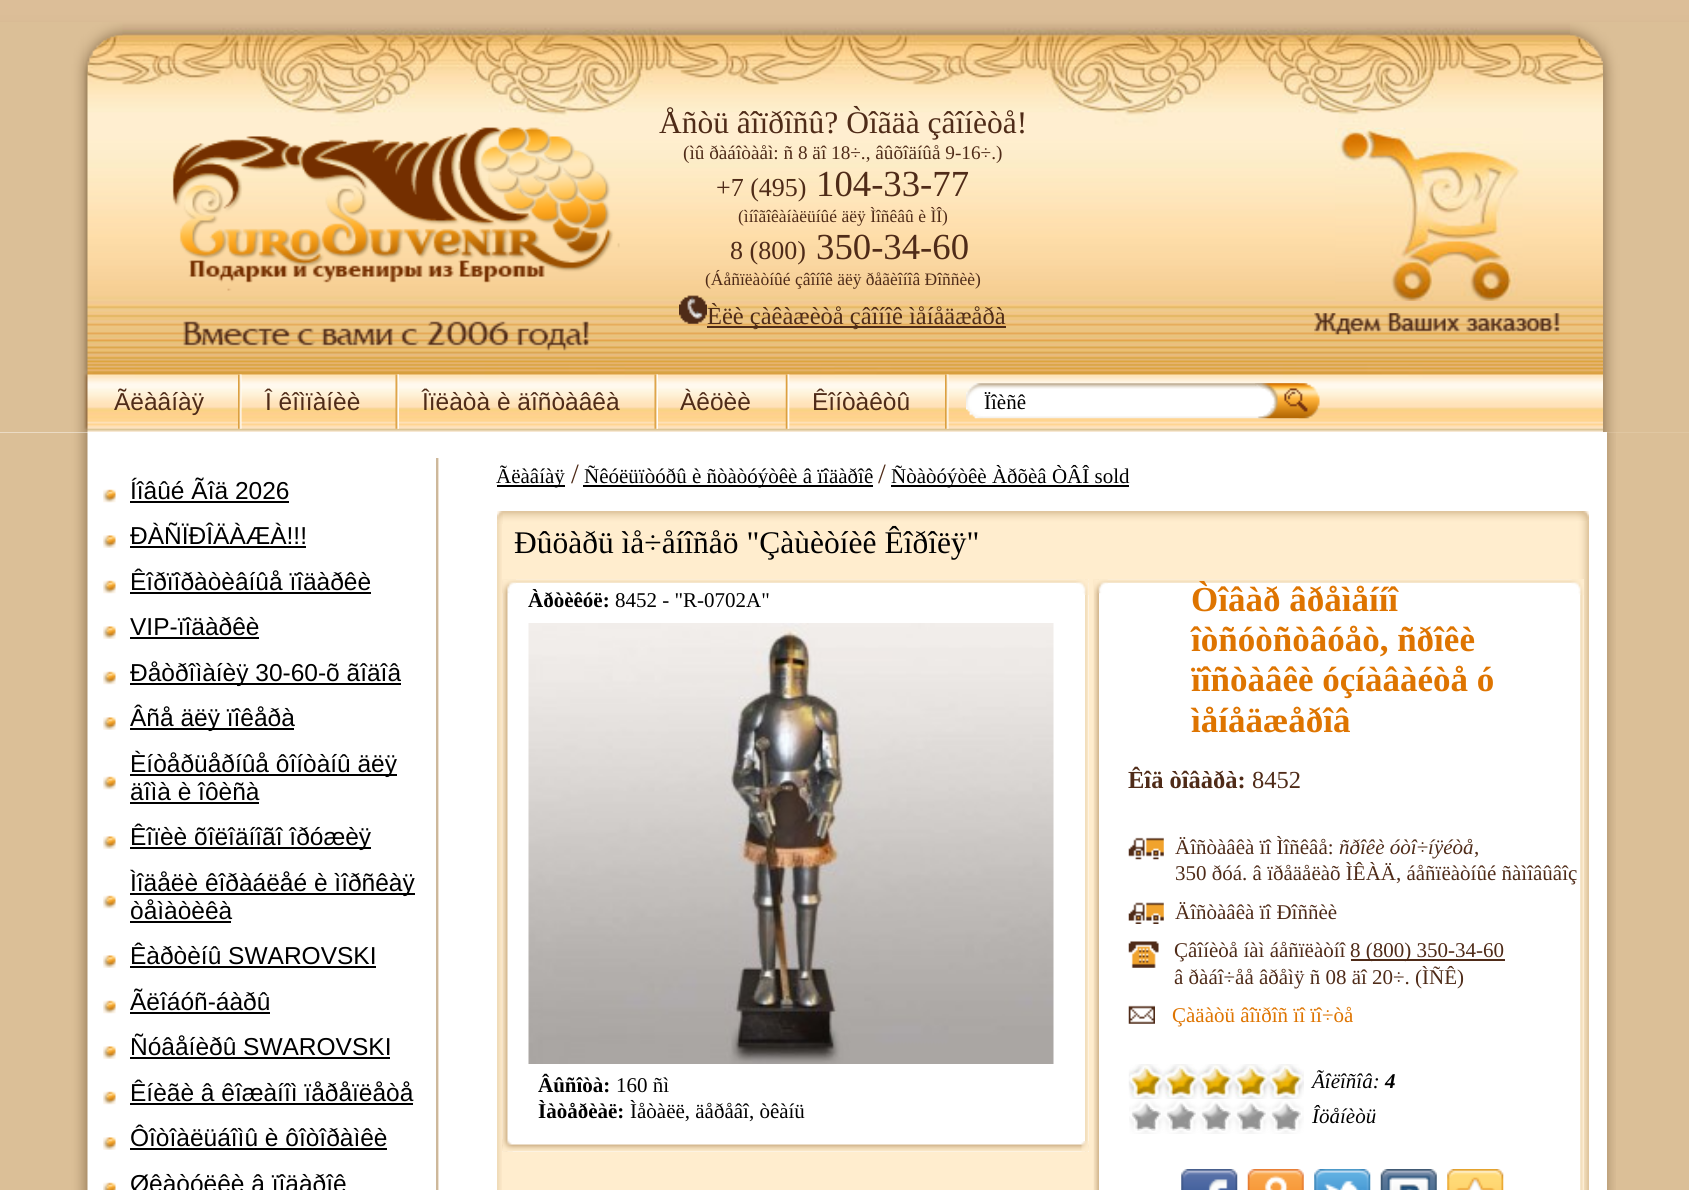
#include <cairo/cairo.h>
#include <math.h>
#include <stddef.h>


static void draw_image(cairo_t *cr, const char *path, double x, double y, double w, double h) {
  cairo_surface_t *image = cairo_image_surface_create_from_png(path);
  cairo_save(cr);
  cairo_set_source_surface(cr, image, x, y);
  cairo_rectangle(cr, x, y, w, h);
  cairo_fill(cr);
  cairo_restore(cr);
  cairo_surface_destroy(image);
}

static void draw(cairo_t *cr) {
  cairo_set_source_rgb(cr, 219 / 255.0, 191 / 255.0, 151 / 255.0);
  cairo_paint(cr);
  draw_image(cr, "images/1.png", 1607, 432, 9, 758);
  draw_image(cr, "images/2.png", 0, 0, 1689, 433);
  draw_image(cr, "images/3.png", 0, 22, 88, 410);
  draw_image(cr, "images/4.png", 1603, 22, 86, 411);
  draw_image(cr, "images/5.png", 84, 22, 39, 50);
  draw_image(cr, "images/6.png", 1570, 22, 33, 48);
  draw_image(cr, "images/7.png", 172, 127, 448, 224);
  draw_image(cr, "images/8.png", 679, 295, 28, 29);
  cairo_set_source_rgb(cr, 79 / 255.0, 43 / 255.0, 24 / 255.0);
  cairo_rectangle(cr, 707, 326, 299, 2);
  cairo_fill(cr);
  draw_image(cr, "images/9.png", 1335, 127, 188, 174);
  draw_image(cr, "images/10.png", 1314, 313, 246, 22);
  draw_image(cr, "images/11.png", 238, 374, 4, 55);
  draw_image(cr, "images/12.png", 395, 374, 4, 55);
  draw_image(cr, "images/13.png", 654, 374, 4, 55);
  draw_image(cr, "images/14.png", 785, 374, 5, 55);
  draw_image(cr, "images/11.png", 945, 374, 4, 55);
  draw_image(cr, "images/15.png", 966, 383, 333, 36);
  draw_image(cr, "images/16.png", 1255, 383, 65, 36);
  cairo_set_source_rgb(cr, 1, 1, 1);
  cairo_rectangle(cr, 0, 432, 1607, 758);
  cairo_fill(cr);
  draw_image(cr, "images/17.png", 0, 432, 88, 758);
  cairo_set_source_rgb(cr, 205 / 255.0, 184 / 255.0, 155 / 255.0);
  cairo_set_fill_rule(cr, CAIRO_FILL_RULE_EVEN_ODD);
  cairo_new_path(cr);
  cairo_move_to(cr, 103, 458);
  cairo_line_to(cr, 438, 458);
  cairo_line_to(cr, 438, 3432);
  cairo_curve_to(cr, 438, 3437, 434, 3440, 429, 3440);
  cairo_line_to(cr, 103, 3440);
  cairo_close_path(cr);
  cairo_move_to(cr, 103, 458);
  cairo_line_to(cr, 436, 458);
  cairo_line_to(cr, 436, 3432);
  cairo_curve_to(cr, 436, 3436, 433, 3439, 429, 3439);
  cairo_line_to(cr, 103, 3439);
  cairo_close_path(cr);
  cairo_fill(cr);
  cairo_set_source_rgb(cr, 238 / 255.0, 226 / 255.0, 210 / 255.0);
  cairo_new_path(cr);
  cairo_move_to(cr, 103, 458);
  cairo_line_to(cr, 439, 458);
  cairo_line_to(cr, 439, 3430);
  cairo_curve_to(cr, 439, 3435, 435, 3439, 430, 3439);
  cairo_line_to(cr, 103, 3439);
  cairo_close_path(cr);
  cairo_move_to(cr, 103, 458);
  cairo_line_to(cr, 438, 458);
  cairo_line_to(cr, 438, 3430);
  cairo_curve_to(cr, 438, 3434, 434, 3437, 430, 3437);
  cairo_line_to(cr, 103, 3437);
  cairo_close_path(cr);
  cairo_fill(cr);
  draw_image(cr, "images/18.png", 103, 489, 13, 14);
  cairo_set_source_rgb(cr, 0, 0, 0);
  cairo_rectangle(cr, 130, 501, 159, 2);
  cairo_fill(cr);
  draw_image(cr, "images/19.png", 103, 535, 13, 13);
  cairo_rectangle(cr, 130, 546, 176, 2);
  cairo_fill(cr);
  draw_image(cr, "images/18.png", 103, 580, 13, 14);
  cairo_rectangle(cr, 130, 592, 241, 2);
  cairo_fill(cr);
  draw_image(cr, "images/19.png", 103, 626, 13, 13);
  cairo_rectangle(cr, 130, 637, 129, 2);
  cairo_fill(cr);
  draw_image(cr, "images/18.png", 103, 671, 13, 14);
  cairo_rectangle(cr, 130, 683, 271, 2);
  cairo_fill(cr);
  draw_image(cr, "images/19.png", 103, 717, 13, 13);
  cairo_rectangle(cr, 130, 728, 164, 2);
  cairo_fill(cr);
  draw_image(cr, "images/18.png", 103, 776, 13, 14);
  cairo_rectangle(cr, 130, 774, 267, 2);
  cairo_fill(cr);
  cairo_rectangle(cr, 130, 802, 129, 2);
  cairo_fill(cr);
  draw_image(cr, "images/19.png", 103, 836, 13, 13);
  cairo_rectangle(cr, 130, 847, 241, 2);
  cairo_fill(cr);
  draw_image(cr, "images/18.png", 103, 895, 13, 14);
  cairo_rectangle(cr, 130, 893, 285, 2);
  cairo_fill(cr);
  cairo_rectangle(cr, 130, 921, 101, 2);
  cairo_fill(cr);
  draw_image(cr, "images/19.png", 103, 955, 13, 13);
  cairo_rectangle(cr, 130, 966, 246, 2);
  cairo_fill(cr);
  draw_image(cr, "images/18.png", 103, 1000, 13, 14);
  cairo_rectangle(cr, 130, 1012, 140, 2);
  cairo_fill(cr);
  draw_image(cr, "images/19.png", 103, 1046, 13, 13);
  cairo_rectangle(cr, 130, 1057, 260, 2);
  cairo_fill(cr);
  draw_image(cr, "images/18.png", 103, 1091, 13, 14);
  cairo_rectangle(cr, 130, 1103, 283, 2);
  cairo_fill(cr);
  draw_image(cr, "images/19.png", 103, 1137, 13, 13);
  cairo_rectangle(cr, 130, 1148, 257, 2);
  cairo_fill(cr);
  draw_image(cr, "images/20.png", 103, 1182, 13, 8);
  cairo_rectangle(cr, 497, 485, 68, 2);
  cairo_fill(cr);
  cairo_rectangle(cr, 583, 485, 290, 2);
  cairo_fill(cr);
  cairo_rectangle(cr, 891, 485, 238, 2);
  cairo_fill(cr);
  cairo_set_source_rgb(cr, 1, 237 / 255.0, 206 / 255.0);
  cairo_rectangle(cr, 502, 523, 1075, 667);
  cairo_fill(cr);
  draw_image(cr, "images/21.png", 497, 524, 5, 666);
  draw_image(cr, "images/22.png", 503, 511, 1074, 13);
  draw_image(cr, "images/23.png", 1576, 521, 13, 669);
  draw_image(cr, "images/24.png", 497, 511, 6, 13);
  draw_image(cr, "images/25.png", 1576, 511, 13, 10);
  cairo_set_source_rgb(cr, 1, 1, 1);
  cairo_rectangle(cr, 502, 579, 587, 573);
  cairo_fill(cr);
  draw_image(cr, "images/26.png", 502, 579, 6, 573);
  draw_image(cr, "images/27.png", 502, 579, 587, 4);
  draw_image(cr, "images/28.png", 502, 1144, 587, 8);
  draw_image(cr, "images/29.png", 1085, 579, 4, 573);
  draw_image(cr, "images/30.png", 502, 579, 14, 15);
  draw_image(cr, "images/31.png", 1076, 579, 13, 16);
  draw_image(cr, "images/32.png", 502, 1139, 11, 13);
  draw_image(cr, "images/33.png", 1081, 1141, 8, 11);
  draw_image(cr, "images/34.png", 528, 623, 526, 441);
  cairo_rectangle(cr, 1094, 579, 490, 611);
  cairo_fill(cr);
  draw_image(cr, "images/35.png", 1093, 579, 6, 611);
  draw_image(cr, "images/36.png", 1094, 579, 490, 4);
  draw_image(cr, "images/37.png", 1580, 579, 4, 611);
  draw_image(cr, "images/38.png", 1094, 579, 14, 15);
  draw_image(cr, "images/39.png", 1571, 579, 13, 16);
  draw_image(cr, "images/40.png", 1128, 837, 36, 23);
  draw_image(cr, "images/41.png", 1128, 902, 36, 22);
  draw_image(cr, "images/42.png", 1128, 941, 31, 27);
  cairo_set_source_rgb(cr, 79 / 255.0, 43 / 255.0, 24 / 255.0);
  cairo_rectangle(cr, 1351, 959, 154, 2);
  cairo_fill(cr);
  draw_image(cr, "images/43.png", 1128, 1005, 27, 19);
  draw_image(cr, "images/44.png", 1128, 1064, 176, 35);
  draw_image(cr, "images/46.png", 1130, 1068, 155, 2);
  draw_image(cr, "images/45.png", 1129, 1064, 175, 33);
  draw_image(cr, "images/47.png", 1129, 1099, 175, 35);
  draw_image(cr, "images/48.png", 1132, 1106, 169, 25);
  draw_image(cr, "images/49.png", 1181, 1169, 57, 21);
  draw_image(cr, "images/50.png", 1247, 1169, 57, 21);
  draw_image(cr, "images/51.png", 1314, 1169, 57, 21);
  draw_image(cr, "images/52.png", 1380, 1169, 57, 21);
  draw_image(cr, "images/53.png", 1447, 1169, 57, 21);
  cairo_select_font_face(cr, "Liberation Serif", CAIRO_FONT_SLANT_NORMAL, CAIRO_FONT_WEIGHT_NORMAL);
  cairo_set_font_size(cr, 31.5);
  cairo_move_to(cr, 659, 133);
  cairo_show_text(cr, "Åñòü âîïðîñû? Òîãäà çâîíèòå!");
  cairo_set_font_size(cr, 19.25);
  cairo_move_to(cr, 683, 159);
  cairo_show_text(cr, "(ìû ðàáîòàåì: ñ 8 äî 18÷., âûõîäíûå 9-16÷.)");
  cairo_set_font_size(cr, 26);
  cairo_move_to(cr, 716, 196);
  cairo_show_text(cr, "+7 (495)");
  cairo_set_font_size(cr, 36.75);
  cairo_move_to(cr, 816, 196);
  cairo_show_text(cr, "104-33-77");
  cairo_set_font_size(cr, 17.5);
  cairo_move_to(cr, 738, 222);
  cairo_show_text(cr, "(ìíîãîêàíàëüíûé äëÿ Ìîñêâû è ÌÎ)");
  cairo_set_font_size(cr, 26);
  cairo_move_to(cr, 730, 259);
  cairo_show_text(cr, "8 (800)");
  cairo_set_font_size(cr, 36.75);
  cairo_move_to(cr, 816, 259);
  cairo_show_text(cr, "350-34-60");
  cairo_set_font_size(cr, 17.5);
  cairo_move_to(cr, 705, 285);
  cairo_show_text(cr, "(Áåñïëàòíûé çâîíîê äëÿ ðåãèîíîâ Ðîññèè)");
  cairo_set_font_size(cr, 24.5);
  cairo_move_to(cr, 707, 324);
  cairo_show_text(cr, "Èëè çàêàæèòå çâîíîê ìåíåäæåðà");
  cairo_select_font_face(cr, "Liberation Sans", CAIRO_FONT_SLANT_NORMAL, CAIRO_FONT_WEIGHT_NORMAL);
  cairo_move_to(cr, 114, 410);
  cairo_show_text(cr, "Ãëàâíàÿ");
  cairo_move_to(cr, 265, 410);
  cairo_show_text(cr, "Î êîìïàíèè");
  cairo_move_to(cr, 422, 410);
  cairo_show_text(cr, "Îïëàòà è äîñòàâêà");
  cairo_move_to(cr, 680, 410);
  cairo_show_text(cr, "Àêöèè");
  cairo_move_to(cr, 812, 410);
  cairo_show_text(cr, "Êîíòàêòû");
  cairo_select_font_face(cr, "Liberation Serif", CAIRO_FONT_SLANT_NORMAL, CAIRO_FONT_WEIGHT_NORMAL);
  cairo_set_font_size(cr, 21);
  cairo_set_source_rgb(cr, 0, 0, 0);
  cairo_move_to(cr, 984, 409);
  cairo_show_text(cr, "Ïîèñê");
  cairo_select_font_face(cr, "Liberation Sans", CAIRO_FONT_SLANT_NORMAL, CAIRO_FONT_WEIGHT_NORMAL);
  cairo_set_font_size(cr, 24.5);
  cairo_move_to(cr, 130, 499);
  cairo_show_text(cr, "Íîâûé Ãîä 2026");
  cairo_move_to(cr, 130, 544);
  cairo_show_text(cr, "ÐÀÑÏÐÎÄÀÆÀ!!!");
  cairo_move_to(cr, 130, 590);
  cairo_show_text(cr, "Êîðïîðàòèâíûå ïîäàðêè");
  cairo_move_to(cr, 130, 635);
  cairo_show_text(cr, "VIP-ïîäàðêè");
  cairo_move_to(cr, 130, 681);
  cairo_show_text(cr, "Ðåòðîìàíèÿ 30-60-õ ãîäîâ");
  cairo_move_to(cr, 130, 726);
  cairo_show_text(cr, "Âñå äëÿ ïîêåðà");
  cairo_move_to(cr, 130, 772);
  cairo_show_text(cr, "Èíòåðüåðíûå ôîíòàíû äëÿ");
  cairo_move_to(cr, 130, 800);
  cairo_show_text(cr, "äîìà è îôèñà");
  cairo_move_to(cr, 130, 845);
  cairo_show_text(cr, "Êîïèè õîëîäíîãî îðóæèÿ");
  cairo_move_to(cr, 130, 891);
  cairo_show_text(cr, "Ìîäåëè êîðàáëåé è ìîðñêàÿ");
  cairo_move_to(cr, 130, 919);
  cairo_show_text(cr, "òåìàòèêà");
  cairo_move_to(cr, 130, 964);
  cairo_show_text(cr, "Êàðòèíû SWAROVSKI");
  cairo_move_to(cr, 130, 1010);
  cairo_show_text(cr, "Ãëîáóñ-áàðû");
  cairo_move_to(cr, 130, 1055);
  cairo_show_text(cr, "Ñóâåíèðû SWAROVSKI");
  cairo_move_to(cr, 130, 1101);
  cairo_show_text(cr, "Êíèãè â êîæàíîì ïåðåïëåòå");
  cairo_move_to(cr, 130, 1146);
  cairo_show_text(cr, "Ôîòîàëüáîìû è ôîòîðàìêè");
  cairo_move_to(cr, 130, 1192);
  cairo_show_text(cr, "Øêàòóëêè â ïîäàðîê");
  cairo_select_font_face(cr, "Liberation Serif", CAIRO_FONT_SLANT_NORMAL, CAIRO_FONT_WEIGHT_NORMAL);
  cairo_set_font_size(cr, 21);
  cairo_move_to(cr, 496, 483);
  cairo_show_text(cr, "Ãëàâíàÿ");
  cairo_set_font_size(cr, 28);
  cairo_set_source_rgb(cr, 79 / 255.0, 43 / 255.0, 24 / 255.0);
  cairo_move_to(cr, 571, 483);
  cairo_show_text(cr, "/");
  cairo_set_font_size(cr, 21);
  cairo_set_source_rgb(cr, 0, 0, 0);
  cairo_move_to(cr, 584, 483);
  cairo_show_text(cr, "Ñêóëüïòóðû è ñòàòóýòêè â ïîäàðîê");
  cairo_set_font_size(cr, 28);
  cairo_set_source_rgb(cr, 79 / 255.0, 43 / 255.0, 24 / 255.0);
  cairo_move_to(cr, 878, 483);
  cairo_show_text(cr, "/");
  cairo_set_font_size(cr, 21);
  cairo_set_source_rgb(cr, 0, 0, 0);
  cairo_move_to(cr, 891, 483);
  cairo_show_text(cr, "Ñòàòóýòêè Àðõèâ ÒÂÎ sold");
  cairo_set_font_size(cr, 31.5);
  cairo_move_to(cr, 514, 553);
  cairo_show_text(cr, "Ðûöàðü ìå÷åíîñåö \"Çàùèòíèê Êîðîëÿ\"");
  cairo_select_font_face(cr, "Liberation Serif", CAIRO_FONT_SLANT_NORMAL, CAIRO_FONT_WEIGHT_BOLD);
  cairo_set_font_size(cr, 21);
  cairo_move_to(cr, 528, 607);
  cairo_show_text(cr, "Àðòèêóë:");
  cairo_select_font_face(cr, "Liberation Serif", CAIRO_FONT_SLANT_NORMAL, CAIRO_FONT_WEIGHT_NORMAL);
  cairo_move_to(cr, 615, 607);
  cairo_show_text(cr, "8452 - \"R-0702A\"");
  cairo_select_font_face(cr, "Liberation Serif", CAIRO_FONT_SLANT_NORMAL, CAIRO_FONT_WEIGHT_BOLD);
  cairo_move_to(cr, 538, 1092);
  cairo_show_text(cr, "Âûñîòà:");
  cairo_select_font_face(cr, "Liberation Serif", CAIRO_FONT_SLANT_NORMAL, CAIRO_FONT_WEIGHT_NORMAL);
  cairo_move_to(cr, 616, 1092);
  cairo_show_text(cr, "160 ñì");
  cairo_select_font_face(cr, "Liberation Serif", CAIRO_FONT_SLANT_NORMAL, CAIRO_FONT_WEIGHT_BOLD);
  cairo_move_to(cr, 538, 1118);
  cairo_show_text(cr, "Ìàòåðèàë:");
  cairo_select_font_face(cr, "Liberation Serif", CAIRO_FONT_SLANT_NORMAL, CAIRO_FONT_WEIGHT_NORMAL);
  cairo_move_to(cr, 630, 1118);
  cairo_show_text(cr, "Ìåòàëë, äåðåâî, òêàíü");
  cairo_select_font_face(cr, "Liberation Serif", CAIRO_FONT_SLANT_NORMAL, CAIRO_FONT_WEIGHT_BOLD);
  cairo_set_font_size(cr, 35);
  cairo_set_source_rgb(cr, 222 / 255.0, 116 / 255.0, 0);
  cairo_move_to(cr, 1191, 611);
  cairo_show_text(cr, "Òîâàð âðåìåííî");
  cairo_move_to(cr, 1191, 651);
  cairo_show_text(cr, "îòñóòñòâóåò, ñðîêè");
  cairo_move_to(cr, 1191, 691);
  cairo_show_text(cr, "ïîñòàâêè óçíàâàéòå ó");
  cairo_move_to(cr, 1191, 732);
  cairo_show_text(cr, "ìåíåäæåðîâ");
  cairo_set_font_size(cr, 24.5);
  cairo_set_source_rgb(cr, 79 / 255.0, 43 / 255.0, 24 / 255.0);
  cairo_move_to(cr, 1128, 788);
  cairo_show_text(cr, "Êîä òîâàðà:");
  cairo_select_font_face(cr, "Liberation Serif", CAIRO_FONT_SLANT_NORMAL, CAIRO_FONT_WEIGHT_NORMAL);
  cairo_move_to(cr, 1252, 788);
  cairo_show_text(cr, "8452");
  cairo_set_font_size(cr, 21);
  cairo_move_to(cr, 1175, 854);
  cairo_show_text(cr, "Äîñòàâêà ïî Ìîñêâå:");
  cairo_select_font_face(cr, "Liberation Serif", CAIRO_FONT_SLANT_ITALIC, CAIRO_FONT_WEIGHT_NORMAL);
  cairo_move_to(cr, 1339, 854);
  cairo_show_text(cr, "ñðîêè óòî÷íÿéòå");
  cairo_select_font_face(cr, "Liberation Serif", CAIRO_FONT_SLANT_NORMAL, CAIRO_FONT_WEIGHT_NORMAL);
  cairo_move_to(cr, 1474, 854);
  cairo_show_text(cr, ",");
  cairo_move_to(cr, 1175, 880);
  cairo_show_text(cr, "350 ðóá. â ïðåäåëàõ ÌÊÀÄ, áåñïëàòíûé ñàìîâûâîç");
  cairo_move_to(cr, 1175, 919);
  cairo_show_text(cr, "Äîñòàâêà ïî Ðîññèè");
  cairo_move_to(cr, 1174, 957);
  cairo_show_text(cr, "Çâîíèòå íàì áåñïëàòíî");
  cairo_move_to(cr, 1350, 957);
  cairo_show_text(cr, "8 (800) 350-34-60");
  cairo_move_to(cr, 1174, 984);
  cairo_show_text(cr, "â ðàáî÷åå âðåìÿ ñ 08 äî 20÷. (ÌÑÊ)");
  cairo_set_source_rgb(cr, 222 / 255.0, 116 / 255.0, 0);
  cairo_move_to(cr, 1172, 1022);
  cairo_show_text(cr, "Çàäàòü âîïðîñ ïî ïî÷òå");
  cairo_select_font_face(cr, "Liberation Serif", CAIRO_FONT_SLANT_ITALIC, CAIRO_FONT_WEIGHT_NORMAL);
  cairo_set_source_rgb(cr, 0, 0, 0);
  cairo_move_to(cr, 1312, 1088);
  cairo_show_text(cr, "Ãîëîñîâ:");
  cairo_select_font_face(cr, "Liberation Serif", CAIRO_FONT_SLANT_ITALIC, CAIRO_FONT_WEIGHT_BOLD);
  cairo_move_to(cr, 1385, 1088);
  cairo_show_text(cr, "4");
  cairo_select_font_face(cr, "Liberation Serif", CAIRO_FONT_SLANT_ITALIC, CAIRO_FONT_WEIGHT_NORMAL);
  cairo_move_to(cr, 1312, 1123);
  cairo_show_text(cr, "Îöåíèòü");
}

int main(void) {
  cairo_surface_t *surface = cairo_image_surface_create(CAIRO_FORMAT_RGB24, 1689, 1190);
  cairo_t *cr = cairo_create(surface);
  cairo_font_options_t *options = cairo_font_options_create();
  cairo_font_options_set_hint_metrics(options, CAIRO_HINT_METRICS_OFF);
  cairo_font_options_set_hint_style(options, CAIRO_HINT_STYLE_NONE);
  cairo_set_font_options(cr, options);
  cairo_set_miter_limit(cr, 4);
  draw(cr);
  cairo_surface_write_to_png(surface, "out.png");
  cairo_font_options_destroy(options);
  cairo_destroy(cr);
  cairo_surface_destroy(surface);
  return 0;
}
